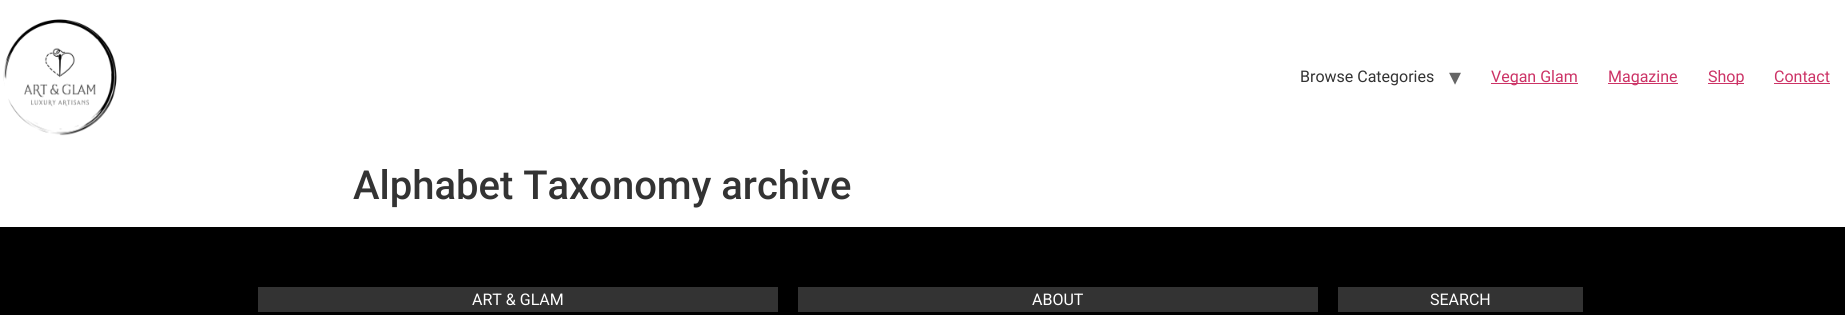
#include <cairo/cairo.h>
#include <math.h>
#include <stddef.h>


static void draw_image(cairo_t *cr, const char *path, double x, double y, double w, double h) {
  cairo_surface_t *image = cairo_image_surface_create_from_png(path);
  cairo_save(cr);
  cairo_set_source_surface(cr, image, x, y);
  cairo_rectangle(cr, x, y, w, h);
  cairo_fill(cr);
  cairo_restore(cr);
  cairo_surface_destroy(image);
}

static void draw(cairo_t *cr) {
  cairo_set_source_rgb(cr, 1, 1, 1);
  cairo_paint(cr);
  draw_image(cr, "images/1.png", 3, 19, 114, 117);
  cairo_set_source_rgb(cr, 204 / 255.0, 51 / 255.0, 102 / 255.0);
  cairo_rectangle(cr, 1491, 83, 87, 1);
  cairo_fill(cr);
  cairo_rectangle(cr, 1608, 83, 70, 1);
  cairo_fill(cr);
  cairo_rectangle(cr, 1708, 83, 36, 1);
  cairo_fill(cr);
  cairo_rectangle(cr, 1774, 83, 56, 1);
  cairo_fill(cr);
  cairo_set_source_rgb(cr, 0, 0, 0);
  cairo_rectangle(cr, 0, 227, 1845, 88);
  cairo_fill(cr);
  cairo_set_source_rgb(cr, 51 / 255.0, 51 / 255.0, 51 / 255.0);
  cairo_rectangle(cr, 258, 287, 520, 25);
  cairo_fill(cr);
  cairo_rectangle(cr, 798, 287, 520, 25);
  cairo_fill(cr);
  cairo_rectangle(cr, 1338, 287, 245, 25);
  cairo_fill(cr);
  cairo_select_font_face(cr, "Roboto", CAIRO_FONT_SLANT_NORMAL, CAIRO_FONT_WEIGHT_NORMAL);
  cairo_set_font_size(cr, 16);
  cairo_move_to(cr, 1300, 82);
  cairo_show_text(cr, "Browse Categories");
  cairo_select_font_face(cr, "DejaVu Sans", CAIRO_FONT_SLANT_NORMAL, CAIRO_FONT_WEIGHT_NORMAL);
  cairo_set_font_size(cr, 24);
  cairo_set_source_rgb(cr, 102 / 255.0, 102 / 255.0, 102 / 255.0);
  cairo_move_to(cr, 1449, 85);
  cairo_show_text(cr, "▾");
  cairo_select_font_face(cr, "Roboto", CAIRO_FONT_SLANT_NORMAL, CAIRO_FONT_WEIGHT_NORMAL);
  cairo_set_font_size(cr, 16);
  cairo_set_source_rgb(cr, 204 / 255.0, 51 / 255.0, 102 / 255.0);
  cairo_move_to(cr, 1491, 82);
  cairo_show_text(cr, "Vegan Glam");
  cairo_move_to(cr, 1608, 82);
  cairo_show_text(cr, "Magazine");
  cairo_move_to(cr, 1708, 82);
  cairo_show_text(cr, "Shop");
  cairo_move_to(cr, 1774, 82);
  cairo_show_text(cr, "Contact");
  cairo_select_font_face(cr, "Roboto Medium", CAIRO_FONT_SLANT_NORMAL, CAIRO_FONT_WEIGHT_NORMAL);
  cairo_set_font_size(cr, 40);
  cairo_set_source_rgb(cr, 51 / 255.0, 51 / 255.0, 51 / 255.0);
  cairo_move_to(cr, 353, 199);
  cairo_show_text(cr, "Alphabet Taxonomy archive");
  cairo_select_font_face(cr, "Roboto", CAIRO_FONT_SLANT_NORMAL, CAIRO_FONT_WEIGHT_NORMAL);
  cairo_set_font_size(cr, 16);
  cairo_set_source_rgb(cr, 1, 1, 1);
  cairo_move_to(cr, 472, 305);
  cairo_show_text(cr, "ART & GLAM");
  cairo_move_to(cr, 1032, 305);
  cairo_show_text(cr, "ABOUT");
  cairo_move_to(cr, 1430, 305);
  cairo_show_text(cr, "SEARCH");
}

int main(void) {
  cairo_surface_t *surface = cairo_image_surface_create(CAIRO_FORMAT_RGB24, 1845, 315);
  cairo_t *cr = cairo_create(surface);
  cairo_font_options_t *options = cairo_font_options_create();
  cairo_font_options_set_hint_metrics(options, CAIRO_HINT_METRICS_OFF);
  cairo_font_options_set_hint_style(options, CAIRO_HINT_STYLE_NONE);
  cairo_set_font_options(cr, options);
  cairo_set_miter_limit(cr, 4);
  draw(cr);
  cairo_surface_write_to_png(surface, "out.png");
  cairo_font_options_destroy(options);
  cairo_destroy(cr);
  cairo_surface_destroy(surface);
  return 0;
}
